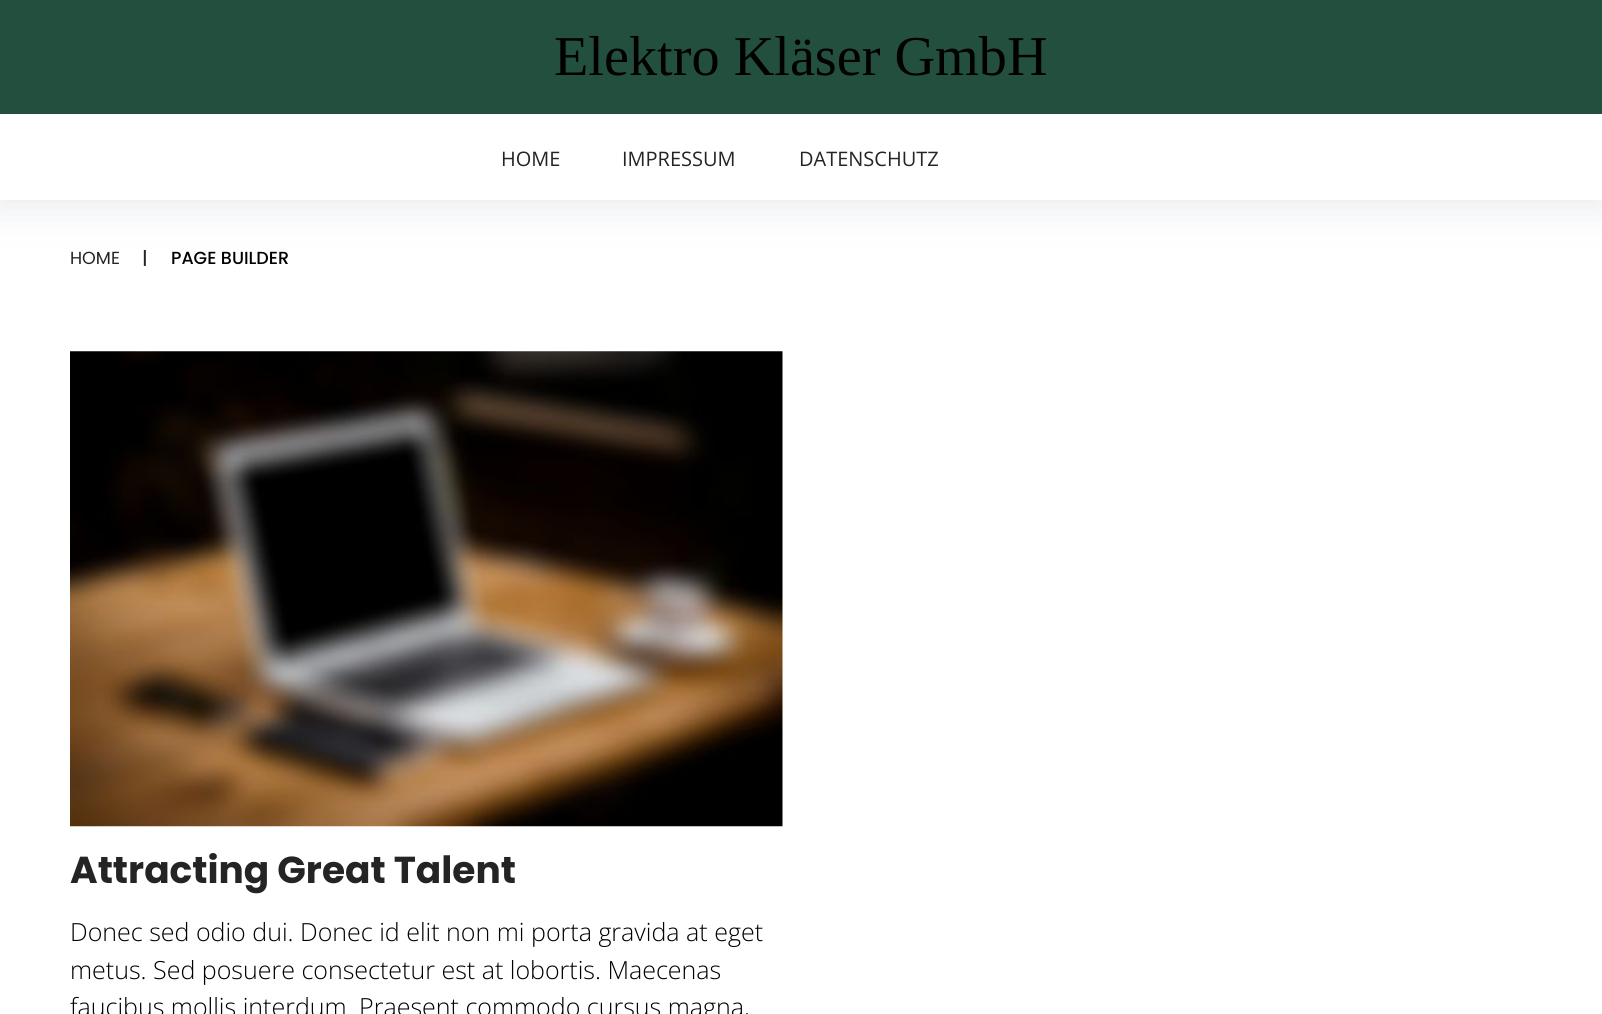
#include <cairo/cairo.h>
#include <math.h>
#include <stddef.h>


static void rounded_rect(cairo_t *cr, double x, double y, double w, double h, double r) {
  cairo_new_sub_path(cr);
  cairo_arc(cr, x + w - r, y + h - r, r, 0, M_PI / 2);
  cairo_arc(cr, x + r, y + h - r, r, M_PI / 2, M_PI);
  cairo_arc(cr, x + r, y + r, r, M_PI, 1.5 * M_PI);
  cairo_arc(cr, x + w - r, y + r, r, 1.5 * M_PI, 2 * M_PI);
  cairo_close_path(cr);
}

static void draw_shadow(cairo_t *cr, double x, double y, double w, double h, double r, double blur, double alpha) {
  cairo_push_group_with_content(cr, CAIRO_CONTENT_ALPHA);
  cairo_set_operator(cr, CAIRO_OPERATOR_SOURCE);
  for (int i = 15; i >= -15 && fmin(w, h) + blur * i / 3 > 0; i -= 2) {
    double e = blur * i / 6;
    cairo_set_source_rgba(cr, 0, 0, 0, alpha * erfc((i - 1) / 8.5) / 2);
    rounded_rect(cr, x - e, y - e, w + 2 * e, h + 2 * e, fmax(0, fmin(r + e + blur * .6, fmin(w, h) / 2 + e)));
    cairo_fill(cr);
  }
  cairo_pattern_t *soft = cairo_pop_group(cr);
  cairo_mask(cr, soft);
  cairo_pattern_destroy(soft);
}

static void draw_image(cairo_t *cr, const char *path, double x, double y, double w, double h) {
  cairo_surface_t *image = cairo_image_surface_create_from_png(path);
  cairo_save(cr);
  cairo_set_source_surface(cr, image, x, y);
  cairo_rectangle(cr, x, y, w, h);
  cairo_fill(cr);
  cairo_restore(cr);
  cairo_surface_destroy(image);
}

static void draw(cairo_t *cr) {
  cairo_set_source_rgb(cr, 1, 1, 1);
  cairo_paint(cr);
  cairo_set_source_rgb(cr, 103 / 255.0, 122 / 255.0, 141 / 255.0);
  draw_shadow(cr, 0, 6, 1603, 200, 0, 20, 0.17);
  cairo_set_source_rgb(cr, 35 / 255.0, 79 / 255.0, 63 / 255.0);
  cairo_rectangle(cr, 0, 0, 1602, 114);
  cairo_fill(cr);
  cairo_set_source_rgb(cr, 1, 1, 1);
  cairo_rectangle(cr, 0, 114, 1602, 86);
  cairo_fill(cr);
  draw_image(cr, "images/1.png", 70, 351, 713, 476);
  cairo_select_font_face(cr, "Liberation Serif", CAIRO_FONT_SLANT_NORMAL, CAIRO_FONT_WEIGHT_NORMAL);
  cairo_set_font_size(cr, 56.25);
  cairo_set_source_rgb(cr, 0, 0, 0);
  cairo_move_to(cr, 554, 75);
  cairo_show_text(cr, "Elektro Kläser GmbH");
  cairo_select_font_face(cr, "Open Sans", CAIRO_FONT_SLANT_NORMAL, CAIRO_FONT_WEIGHT_NORMAL);
  cairo_set_font_size(cr, 20);
  cairo_set_source_rgb(cr, 36 / 255.0, 36 / 255.0, 36 / 255.0);
  cairo_move_to(cr, 501, 166);
  cairo_show_text(cr, "HOME");
  cairo_move_to(cr, 622, 166);
  cairo_show_text(cr, "IMPRESSUM");
  cairo_move_to(cr, 799, 166);
  cairo_show_text(cr, "DATENSCHUTZ");
  cairo_select_font_face(cr, "Poppins", CAIRO_FONT_SLANT_NORMAL, CAIRO_FONT_WEIGHT_NORMAL);
  cairo_set_font_size(cr, 17.5);
  cairo_move_to(cr, 70, 264);
  cairo_show_text(cr, "HOME");
  cairo_select_font_face(cr, "Poppins Medium", CAIRO_FONT_SLANT_NORMAL, CAIRO_FONT_WEIGHT_NORMAL);
  cairo_move_to(cr, 142, 264);
  cairo_show_text(cr, "|");
  cairo_set_source_rgb(cr, 0, 0, 0);
  cairo_move_to(cr, 171, 264);
  cairo_show_text(cr, "PAGE BUILDER");
  cairo_select_font_face(cr, "Poppins", CAIRO_FONT_SLANT_NORMAL, CAIRO_FONT_WEIGHT_BOLD);
  cairo_set_font_size(cr, 37.5);
  cairo_set_source_rgb(cr, 36 / 255.0, 36 / 255.0, 36 / 255.0);
  cairo_move_to(cr, 70, 883);
  cairo_show_text(cr, "Attracting Great Talent");
  cairo_select_font_face(cr, "Open Sans Light", CAIRO_FONT_SLANT_NORMAL, CAIRO_FONT_WEIGHT_NORMAL);
  cairo_set_font_size(cr, 25);
  cairo_set_source_rgb(cr, 0, 0, 0);
  cairo_move_to(cr, 70, 941);
  cairo_show_text(cr, "Donec sed odio dui. Donec id elit non mi porta gravida at eget");
  cairo_move_to(cr, 70, 979);
  cairo_show_text(cr, "metus. Sed posuere consectetur est at lobortis. Maecenas");
  cairo_move_to(cr, 70, 1016);
  cairo_show_text(cr, "faucibus mollis interdum. Praesent commodo cursus magna,");
}

int main(void) {
  cairo_surface_t *surface = cairo_image_surface_create(CAIRO_FORMAT_RGB24, 1602, 1014);
  cairo_t *cr = cairo_create(surface);
  cairo_font_options_t *options = cairo_font_options_create();
  cairo_font_options_set_hint_metrics(options, CAIRO_HINT_METRICS_OFF);
  cairo_font_options_set_hint_style(options, CAIRO_HINT_STYLE_NONE);
  cairo_set_font_options(cr, options);
  cairo_set_miter_limit(cr, 4);
  draw(cr);
  cairo_surface_write_to_png(surface, "out.png");
  cairo_font_options_destroy(options);
  cairo_destroy(cr);
  cairo_surface_destroy(surface);
  return 0;
}
